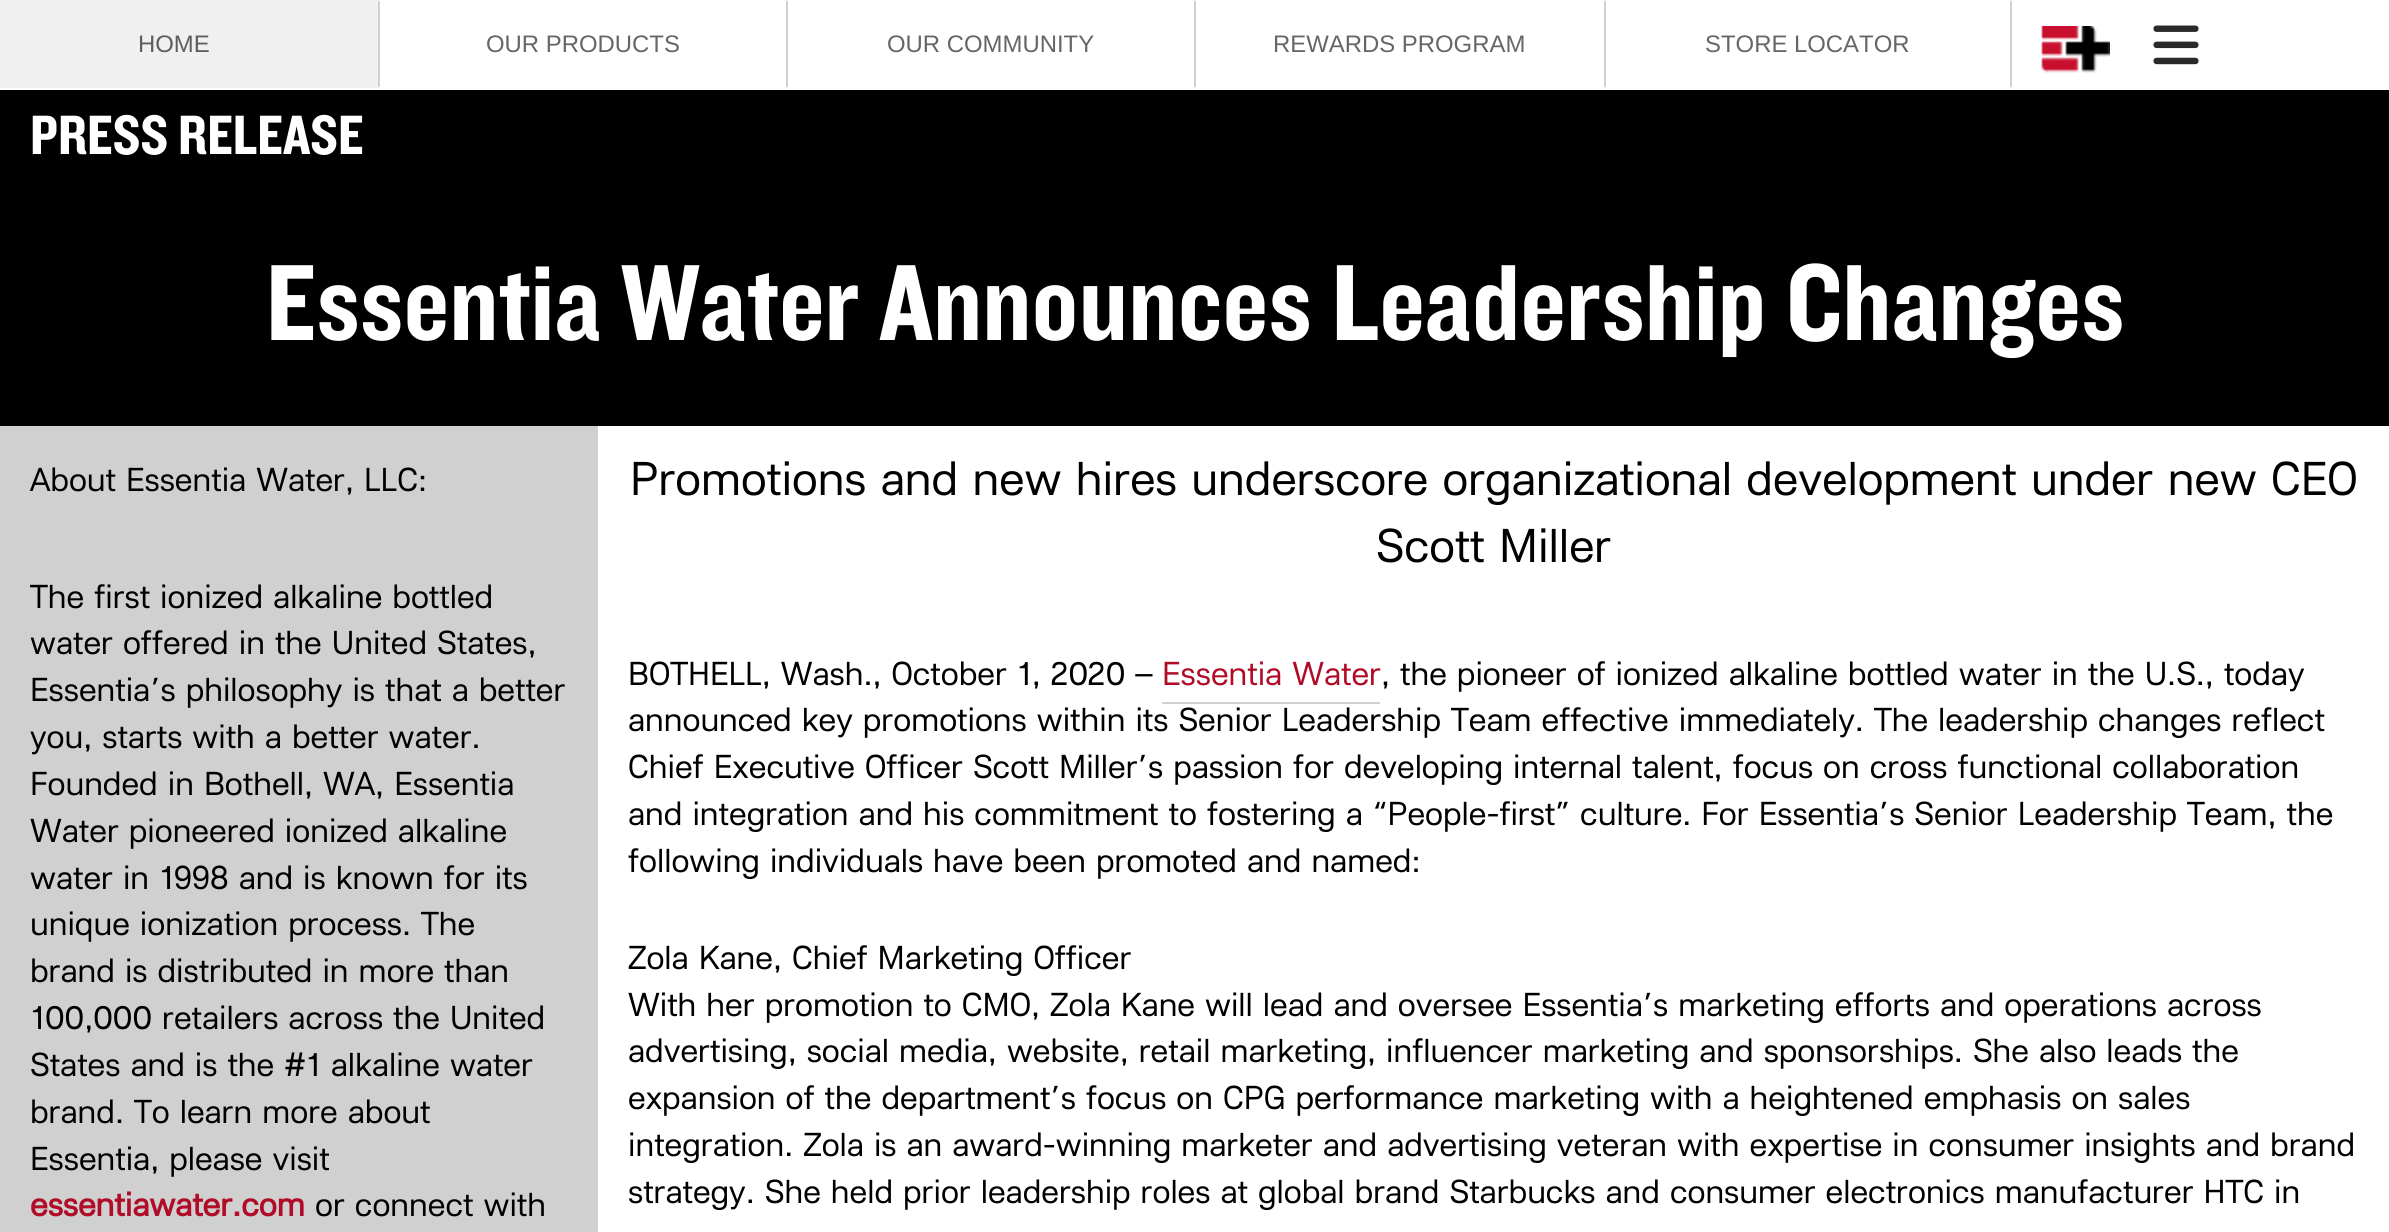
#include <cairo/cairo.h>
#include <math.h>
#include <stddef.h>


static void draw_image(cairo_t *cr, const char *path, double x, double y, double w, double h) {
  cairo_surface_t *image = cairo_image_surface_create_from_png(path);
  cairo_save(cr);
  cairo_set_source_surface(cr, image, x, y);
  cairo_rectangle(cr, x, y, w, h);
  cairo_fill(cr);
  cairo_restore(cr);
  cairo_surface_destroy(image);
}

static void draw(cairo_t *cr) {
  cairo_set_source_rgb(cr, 1, 1, 1);
  cairo_paint(cr);
  cairo_set_source_rgb(cr, 240 / 255.0, 240 / 255.0, 240 / 255.0);
  cairo_rectangle(cr, 0, 0, 378, 88);
  cairo_fill(cr);
  cairo_set_source_rgb(cr, 208 / 255.0, 208 / 255.0, 208 / 255.0);
  cairo_new_path(cr);
  cairo_move_to(cr, 378, 88);
  cairo_line_to(cr, 378, 0);
  cairo_line_to(cr, 380, 2);
  cairo_line_to(cr, 380, 86);
  cairo_close_path(cr);
  cairo_fill(cr);
  cairo_new_path(cr);
  cairo_move_to(cr, 786, 88);
  cairo_line_to(cr, 786, 0);
  cairo_line_to(cr, 788, 2);
  cairo_line_to(cr, 788, 86);
  cairo_close_path(cr);
  cairo_fill(cr);
  cairo_new_path(cr);
  cairo_move_to(cr, 1194, 88);
  cairo_line_to(cr, 1194, 0);
  cairo_line_to(cr, 1196, 2);
  cairo_line_to(cr, 1196, 86);
  cairo_close_path(cr);
  cairo_fill(cr);
  cairo_new_path(cr);
  cairo_move_to(cr, 2012, 0);
  cairo_line_to(cr, 2012, 88);
  cairo_line_to(cr, 2010, 86);
  cairo_line_to(cr, 2010, 2);
  cairo_close_path(cr);
  cairo_fill(cr);
  cairo_new_path(cr);
  cairo_move_to(cr, 1604, 88);
  cairo_line_to(cr, 1604, 0);
  cairo_line_to(cr, 1606, 2);
  cairo_line_to(cr, 1606, 86);
  cairo_close_path(cr);
  cairo_fill(cr);
  draw_image(cr, "images/1.png", 2041, 26, 69, 47);
  draw_image(cr, "images/2.png", 2153, 25, 46, 40);
  cairo_set_source_rgb(cr, 0, 0, 0);
  cairo_rectangle(cr, 0, 90, 2389, 336);
  cairo_fill(cr);
  cairo_set_source_rgb(cr, 208 / 255.0, 208 / 255.0, 208 / 255.0);
  cairo_rectangle(cr, 0, 426, 598, 806);
  cairo_fill(cr);
  cairo_rectangle(cr, 1162, 702, 218, 2);
  cairo_fill(cr);
  cairo_select_font_face(cr, "Liberation Sans", CAIRO_FONT_SLANT_NORMAL, CAIRO_FONT_WEIGHT_NORMAL);
  cairo_set_font_size(cr, 23.9);
  cairo_set_source_rgb(cr, 94 / 255.0, 94 / 255.0, 94 / 255.0);
  cairo_move_to(cr, 138, 52);
  cairo_show_text(cr, "HOME");
  cairo_set_source_rgb(cr, 102 / 255.0, 102 / 255.0, 102 / 255.0);
  cairo_move_to(cr, 486, 52);
  cairo_show_text(cr, "OUR PRODUCTS");
  cairo_move_to(cr, 887, 52);
  cairo_show_text(cr, "OUR COMMUNITY");
  cairo_move_to(cr, 1273, 52);
  cairo_show_text(cr, "REWARDS PROGRAM");
  cairo_move_to(cr, 1705, 52);
  cairo_show_text(cr, "STORE LOCATOR");
  cairo_select_font_face(cr, "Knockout", CAIRO_FONT_SLANT_NORMAL, CAIRO_FONT_WEIGHT_NORMAL);
  cairo_set_font_size(cr, 57.5);
  cairo_set_source_rgb(cr, 1, 1, 1);
  cairo_move_to(cr, 30, 154);
  cairo_show_text(cr, "PRESS RELEASE");
  cairo_set_font_size(cr, 112.3);
  cairo_move_to(cr, 266, 340);
  cairo_show_text(cr, "Essentia Water Announces Leadership Changes");
  cairo_select_font_face(cr, "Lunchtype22", CAIRO_FONT_SLANT_NORMAL, CAIRO_FONT_WEIGHT_NORMAL);
  cairo_set_font_size(cr, 33.45);
  cairo_set_source_rgb(cr, 0, 0, 0);
  cairo_move_to(cr, 30, 491);
  cairo_show_text(cr, "About Essentia Water, LLC:");
  cairo_move_to(cr, 30, 608);
  cairo_show_text(cr, "The first ionized alkaline bottled");
  cairo_move_to(cr, 30, 654);
  cairo_show_text(cr, "water offered in the United States,");
  cairo_move_to(cr, 30, 701);
  cairo_show_text(cr, "Essentia’s philosophy is that a better");
  cairo_move_to(cr, 30, 748);
  cairo_show_text(cr, "you, starts with a better water.");
  cairo_move_to(cr, 30, 795);
  cairo_show_text(cr, "Founded in Bothell, WA, Essentia");
  cairo_move_to(cr, 30, 842);
  cairo_show_text(cr, "Water pioneered ionized alkaline");
  cairo_move_to(cr, 30, 889);
  cairo_show_text(cr, "water in 1998 and is known for its");
  cairo_move_to(cr, 30, 935);
  cairo_show_text(cr, "unique ionization process. The");
  cairo_move_to(cr, 30, 982);
  cairo_show_text(cr, "brand is distributed in more than");
  cairo_move_to(cr, 30, 1029);
  cairo_show_text(cr, "100,000 retailers across the United");
  cairo_move_to(cr, 30, 1076);
  cairo_show_text(cr, "States and is the #1 alkaline water");
  cairo_move_to(cr, 30, 1123);
  cairo_show_text(cr, "brand. To learn more about");
  cairo_move_to(cr, 30, 1170);
  cairo_show_text(cr, "Essentia, please visit");
  cairo_select_font_face(cr, "Lunchtype22", CAIRO_FONT_SLANT_NORMAL, CAIRO_FONT_WEIGHT_BOLD);
  cairo_set_source_rgb(cr, 176 / 255.0, 12 / 255.0, 40 / 255.0);
  cairo_move_to(cr, 30, 1216);
  cairo_show_text(cr, "essentiawater.com");
  cairo_select_font_face(cr, "Lunchtype22", CAIRO_FONT_SLANT_NORMAL, CAIRO_FONT_WEIGHT_NORMAL);
  cairo_set_source_rgb(cr, 0, 0, 0);
  cairo_move_to(cr, 315, 1216);
  cairo_show_text(cr, "or connect with");
  cairo_set_font_size(cr, 47.8);
  cairo_move_to(cr, 630, 495);
  cairo_show_text(cr, "Promotions and new hires underscore organizational development under new CEO");
  cairo_move_to(cr, 1376, 562);
  cairo_show_text(cr, "Scott Miller");
  cairo_set_font_size(cr, 33.45);
  cairo_move_to(cr, 628, 685);
  cairo_show_text(cr, "BOTHELL, Wash., October 1, 2020 –");
  cairo_set_source_rgb(cr, 176 / 255.0, 12 / 255.0, 40 / 255.0);
  cairo_move_to(cr, 1162, 685);
  cairo_show_text(cr, "Essentia Water");
  cairo_set_source_rgb(cr, 0, 0, 0);
  cairo_move_to(cr, 1381, 685);
  cairo_show_text(cr, ", the pioneer of ionized alkaline bottled water in the U.S., today");
  cairo_move_to(cr, 628, 731);
  cairo_show_text(cr, "announced key promotions within its Senior Leadership Team effective immediately. The leadership changes reflect");
  cairo_move_to(cr, 628, 778);
  cairo_show_text(cr, "Chief Executive Officer Scott Miller’s passion for developing internal talent, focus on cross functional collaboration");
  cairo_move_to(cr, 628, 825);
  cairo_show_text(cr, "and integration and his commitment to fostering a “People-first” culture. For Essentia’s Senior Leadership Team, the");
  cairo_move_to(cr, 628, 872);
  cairo_show_text(cr, "following individuals have been promoted and named:");
  cairo_move_to(cr, 628, 969);
  cairo_show_text(cr, "Zola Kane, Chief Marketing Officer");
  cairo_move_to(cr, 628, 1016);
  cairo_show_text(cr, "With her promotion to CMO, Zola Kane will lead and oversee Essentia’s marketing efforts and operations across");
  cairo_move_to(cr, 628, 1062);
  cairo_show_text(cr, "advertising, social media, website, retail marketing, influencer marketing and sponsorships. She also leads the");
  cairo_move_to(cr, 628, 1109);
  cairo_show_text(cr, "expansion of the department’s focus on CPG performance marketing with a heightened emphasis on sales");
  cairo_move_to(cr, 628, 1156);
  cairo_show_text(cr, "integration. Zola is an award-winning marketer and advertising veteran with expertise in consumer insights and brand");
  cairo_move_to(cr, 628, 1203);
  cairo_show_text(cr, "strategy. She held prior leadership roles at global brand Starbucks and consumer electronics manufacturer HTC in");
}

int main(void) {
  cairo_surface_t *surface = cairo_image_surface_create(CAIRO_FORMAT_RGB24, 2389, 1232);
  cairo_t *cr = cairo_create(surface);
  cairo_font_options_t *options = cairo_font_options_create();
  cairo_font_options_set_hint_metrics(options, CAIRO_HINT_METRICS_OFF);
  cairo_font_options_set_hint_style(options, CAIRO_HINT_STYLE_NONE);
  cairo_set_font_options(cr, options);
  cairo_set_miter_limit(cr, 4);
  draw(cr);
  cairo_surface_write_to_png(surface, "out.png");
  cairo_font_options_destroy(options);
  cairo_destroy(cr);
  cairo_surface_destroy(surface);
  return 0;
}
